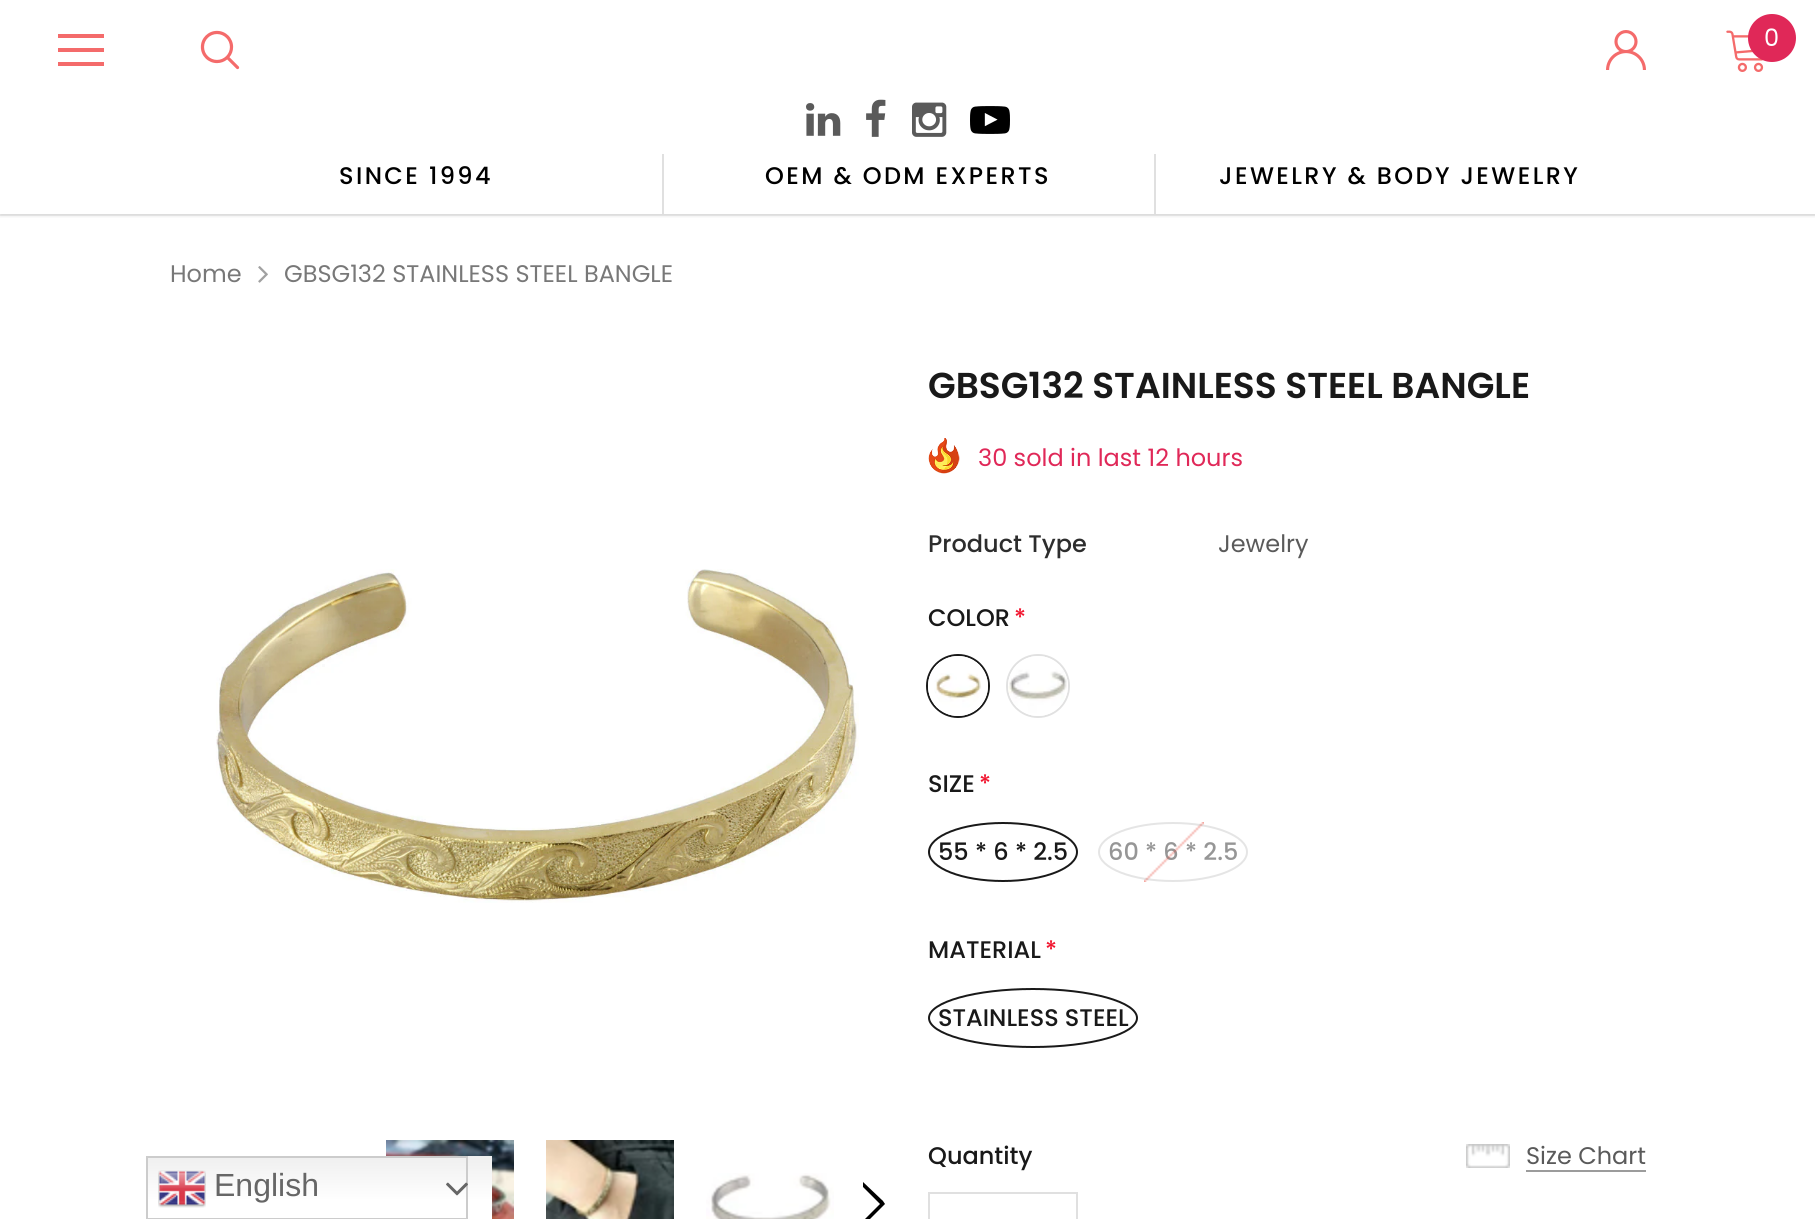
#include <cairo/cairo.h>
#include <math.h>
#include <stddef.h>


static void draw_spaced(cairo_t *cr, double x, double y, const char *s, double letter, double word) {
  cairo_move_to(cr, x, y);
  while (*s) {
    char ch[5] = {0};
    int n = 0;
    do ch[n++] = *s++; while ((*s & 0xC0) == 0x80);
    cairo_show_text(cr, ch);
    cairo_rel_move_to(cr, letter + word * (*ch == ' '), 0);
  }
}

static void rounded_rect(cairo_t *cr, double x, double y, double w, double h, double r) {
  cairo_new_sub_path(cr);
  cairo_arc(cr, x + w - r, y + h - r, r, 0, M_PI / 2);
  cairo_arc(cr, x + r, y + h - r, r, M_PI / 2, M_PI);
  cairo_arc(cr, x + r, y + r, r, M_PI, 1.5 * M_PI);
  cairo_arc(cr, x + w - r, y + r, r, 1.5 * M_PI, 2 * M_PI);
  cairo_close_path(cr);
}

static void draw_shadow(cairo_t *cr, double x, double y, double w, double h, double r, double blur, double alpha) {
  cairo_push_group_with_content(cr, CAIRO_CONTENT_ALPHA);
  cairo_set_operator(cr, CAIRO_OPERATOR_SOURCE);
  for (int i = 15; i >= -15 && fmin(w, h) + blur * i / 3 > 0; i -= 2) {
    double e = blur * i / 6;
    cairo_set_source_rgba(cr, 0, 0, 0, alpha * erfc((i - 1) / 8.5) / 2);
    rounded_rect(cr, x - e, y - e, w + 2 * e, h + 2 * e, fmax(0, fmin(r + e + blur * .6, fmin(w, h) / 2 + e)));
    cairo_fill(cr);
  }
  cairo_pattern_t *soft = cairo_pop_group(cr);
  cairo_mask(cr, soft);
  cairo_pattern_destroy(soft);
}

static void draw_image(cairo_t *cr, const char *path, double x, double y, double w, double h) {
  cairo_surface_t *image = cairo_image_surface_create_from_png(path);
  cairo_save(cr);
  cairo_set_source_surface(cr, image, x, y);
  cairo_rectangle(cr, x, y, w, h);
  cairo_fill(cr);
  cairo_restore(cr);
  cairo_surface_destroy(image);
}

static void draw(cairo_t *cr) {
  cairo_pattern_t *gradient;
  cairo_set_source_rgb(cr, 1, 1, 1);
  cairo_paint(cr);
  draw_image(cr, "images/1.png", 1726, 30, 38, 42);
  cairo_set_source_rgb(cr, 224 / 255.0, 40 / 255.0, 88 / 255.0);
  cairo_arc(cr, 1772, 38, 24, 0, 2 * M_PI);
  cairo_fill(cr);
  cairo_save(cr);
  cairo_rectangle(cr, 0, 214, 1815, 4);
  cairo_clip(cr);
  cairo_set_source_rgb(cr, 0, 0, 0);
  draw_shadow(cr, 0, 136, 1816, 80, 0, 2, 0.1);
  cairo_restore(cr);
  cairo_rectangle(cr, -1, 133, 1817, 82);
  cairo_set_source_rgba(cr, 0, 0, 0, 0.06);
  cairo_stroke(cr);
  cairo_set_source_rgb(cr, 1, 1, 1);
  cairo_rectangle(cr, 0, 132, 1815, 2);
  cairo_fill(cr);
  cairo_set_source_rgb(cr, 244 / 255.0, 107 / 255.0, 107 / 255.0);
  cairo_rectangle(cr, 58, 48, 46, 4);
  cairo_fill(cr);
  cairo_rectangle(cr, 58, 34, 46, 4);
  cairo_fill(cr);
  cairo_rectangle(cr, 58, 62, 46, 4);
  cairo_fill(cr);
  draw_image(cr, "images/2.png", 200, 30, 40, 40);
  draw_image(cr, "images/3.png", 1606, 30, 40, 40);
  draw_image(cr, "images/4.png", 806, 103, 35, 33);
  draw_image(cr, "images/5.png", 866, 99, 20, 38);
  draw_image(cr, "images/6.png", 912, 102, 35, 35);
  draw_image(cr, "images/7.png", 970, 106, 40, 28);
  cairo_set_source_rgb(cr, 224 / 255.0, 224 / 255.0, 224 / 255.0);
  cairo_rectangle(cr, 662, 154, 2, 60);
  cairo_fill(cr);
  cairo_rectangle(cr, 1154, 154, 2, 60);
  cairo_fill(cr);
  draw_image(cr, "images/8.png", 258, 266, 10, 17);
  draw_image(cr, "images/9.png", 216, 569, 643, 334);
  draw_image(cr, "images/10.png", 386, 1140, 128, 79);
  draw_image(cr, "images/11.png", 546, 1140, 128, 79);
  draw_image(cr, "images/12.png", 706, 1173, 128, 46);
  cairo_set_source_rgb(cr, 0, 0, 0);
  cairo_new_path(cr);
  cairo_move_to(cr, 883, 1201);
  cairo_line_to(cr, 863, 1182);
  cairo_line_to(cr, 863, 1187);
  cairo_line_to(cr, 880, 1204);
  cairo_line_to(cr, 863, 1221);
  cairo_line_to(cr, 863, 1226);
  cairo_line_to(cr, 885, 1204);
  cairo_close_path(cr);
  cairo_fill(cr);
  draw_image(cr, "images/13.png", 928, 438, 32, 36);
  cairo_arc(cr, 958, 686, 31, 0, 2 * M_PI);
  cairo_set_source_rgb(cr, 25 / 255.0, 25 / 255.0, 25 / 255.0);
  cairo_stroke(cr);
  draw_image(cr, "images/14.png", 934, 662, 48, 48);
  cairo_arc(cr, 958, 686, 27, 0, 2 * M_PI);
  cairo_set_source_rgb(cr, 1, 1, 1);
  cairo_set_line_width(cr, 6);
  cairo_stroke(cr);
  cairo_arc(cr, 1038, 686, 31, 0, 2 * M_PI);
  cairo_set_source_rgb(cr, 225 / 255.0, 225 / 255.0, 225 / 255.0);
  cairo_set_line_width(cr, 2);
  cairo_stroke(cr);
  draw_image(cr, "images/15.png", 1008, 656, 60, 60);
  cairo_new_path(cr);
  cairo_move_to(cr, 1003, 823);
  cairo_curve_to(cr, 1044, 823, 1077, 836, 1077, 852);
  cairo_curve_to(cr, 1077, 868, 1044, 881, 1003, 881);
  cairo_curve_to(cr, 962, 881, 929, 868, 929, 852);
  cairo_curve_to(cr, 929, 836, 962, 823, 1003, 823);
  cairo_close_path(cr);
  cairo_set_source_rgb(cr, 25 / 255.0, 25 / 255.0, 25 / 255.0);
  cairo_stroke(cr);
  cairo_new_path(cr);
  cairo_move_to(cr, 1173, 823);
  cairo_curve_to(cr, 1214, 823, 1247, 836, 1247, 852);
  cairo_curve_to(cr, 1247, 868, 1214, 881, 1173, 881);
  cairo_curve_to(cr, 1132, 881, 1099, 868, 1099, 852);
  cairo_curve_to(cr, 1099, 836, 1132, 823, 1173, 823);
  cairo_close_path(cr);
  cairo_set_source_rgb(cr, 229 / 255.0, 229 / 255.0, 229 / 255.0);
  cairo_stroke(cr);
  cairo_new_path(cr);
  cairo_move_to(cr, 1033, 989);
  cairo_curve_to(cr, 1090.5, 989, 1137, 1002, 1137, 1018);
  cairo_curve_to(cr, 1137, 1034, 1090.5, 1047, 1033, 1047);
  cairo_curve_to(cr, 975.5, 1047, 929, 1034, 929, 1018);
  cairo_curve_to(cr, 929, 1002, 975.5, 989, 1033, 989);
  cairo_close_path(cr);
  cairo_set_source_rgb(cr, 25 / 255.0, 25 / 255.0, 25 / 255.0);
  cairo_stroke(cr);
  draw_image(cr, "images/17.png", 1466, 1144, 44, 24);
  cairo_set_source_rgb(cr, 156 / 255.0, 156 / 255.0, 156 / 255.0);
  cairo_rectangle(cr, 1526, 1170, 120, 2);
  cairo_fill(cr);
  cairo_rectangle(cr, 929, 1193, 148, 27);
  cairo_set_source_rgb(cr, 224 / 255.0, 224 / 255.0, 224 / 255.0);
  cairo_stroke(cr);
  gradient = cairo_pattern_create_linear(319, 1156, 319, 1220);
  cairo_pattern_add_color_stop_rgba(gradient, 0, 239 / 255.0, 239 / 255.0, 239 / 255.0, 1);
  cairo_pattern_add_color_stop_rgba(gradient, 0.7, 1, 1, 1, 1);
  cairo_set_source(cr, gradient);
  cairo_pattern_destroy(gradient);
  cairo_rectangle(cr, 148, 1156, 344, 63);
  cairo_fill(cr);
  cairo_rectangle(cr, 147, 1157, 320, 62);
  cairo_set_source_rgb(cr, 204 / 255.0, 204 / 255.0, 204 / 255.0);
  cairo_stroke(cr);
  draw_image(cr, "images/18.png", 158, 1170, 48, 38);
  draw_image(cr, "images/19.png", 446, 1182, 22, 14);
  cairo_select_font_face(cr, "Poppins", CAIRO_FONT_SLANT_NORMAL, CAIRO_FONT_WEIGHT_NORMAL);
  cairo_set_font_size(cr, 24);
  cairo_set_source_rgb(cr, 1, 1, 1);
  cairo_move_to(cr, 1764, 46);
  cairo_show_text(cr, "0");
  cairo_select_font_face(cr, "Poppins Medium", CAIRO_FONT_SLANT_NORMAL, CAIRO_FONT_WEIGHT_NORMAL);
  cairo_set_source_rgb(cr, 0, 0, 0);
  draw_spaced(cr, 339, 184, "SINCE 1994", 2.4, 0);
  draw_spaced(cr, 765, 184, "OEM & ODM EXPERTS", 2.4, 0);
  draw_spaced(cr, 1219, 184, "JEWELRY & BODY JEWELRY", 2.4, 0);
  cairo_select_font_face(cr, "Poppins", CAIRO_FONT_SLANT_NORMAL, CAIRO_FONT_WEIGHT_NORMAL);
  cairo_set_source_rgb(cr, 120 / 255.0, 120 / 255.0, 120 / 255.0);
  cairo_move_to(cr, 170, 282);
  cairo_show_text(cr, "Home");
  cairo_move_to(cr, 284, 282);
  cairo_show_text(cr, "GBSG132 STAINLESS STEEL BANGLE");
  cairo_select_font_face(cr, "Poppins SemiBold", CAIRO_FONT_SLANT_NORMAL, CAIRO_FONT_WEIGHT_NORMAL);
  cairo_set_font_size(cr, 36);
  cairo_set_source_rgb(cr, 25 / 255.0, 25 / 255.0, 25 / 255.0);
  cairo_move_to(cr, 928, 398);
  cairo_show_text(cr, "GBSG132 STAINLESS STEEL BANGLE");
  cairo_select_font_face(cr, "Poppins", CAIRO_FONT_SLANT_NORMAL, CAIRO_FONT_WEIGHT_NORMAL);
  cairo_set_font_size(cr, 24);
  cairo_set_source_rgb(cr, 224 / 255.0, 40 / 255.0, 88 / 255.0);
  cairo_move_to(cr, 978, 466);
  cairo_show_text(cr, "30 sold in last 12 hours");
  cairo_select_font_face(cr, "Poppins Medium", CAIRO_FONT_SLANT_NORMAL, CAIRO_FONT_WEIGHT_NORMAL);
  cairo_set_source_rgb(cr, 45 / 255.0, 45 / 255.0, 45 / 255.0);
  cairo_move_to(cr, 928, 552);
  cairo_show_text(cr, "Product Type");
  cairo_select_font_face(cr, "Poppins", CAIRO_FONT_SLANT_NORMAL, CAIRO_FONT_WEIGHT_NORMAL);
  cairo_set_source_rgb(cr, 90 / 255.0, 90 / 255.0, 90 / 255.0);
  cairo_move_to(cr, 1218, 552);
  cairo_show_text(cr, "Jewelry");
  cairo_select_font_face(cr, "Poppins Medium", CAIRO_FONT_SLANT_NORMAL, CAIRO_FONT_WEIGHT_NORMAL);
  cairo_set_source_rgb(cr, 25 / 255.0, 25 / 255.0, 25 / 255.0);
  cairo_move_to(cr, 928, 626);
  cairo_show_text(cr, "COLOR");
  cairo_set_source_rgb(cr, 241 / 255.0, 21 / 255.0, 47 / 255.0);
  cairo_move_to(cr, 1014, 626);
  cairo_show_text(cr, "*");
  cairo_set_source_rgb(cr, 25 / 255.0, 25 / 255.0, 25 / 255.0);
  cairo_move_to(cr, 928, 792);
  cairo_show_text(cr, "SIZE");
  cairo_set_source_rgb(cr, 241 / 255.0, 21 / 255.0, 47 / 255.0);
  cairo_move_to(cr, 979, 792);
  cairo_show_text(cr, "*");
  cairo_set_source_rgb(cr, 25 / 255.0, 25 / 255.0, 25 / 255.0);
  cairo_move_to(cr, 938, 860);
  cairo_show_text(cr, "55 * 6 * 2.5");
  cairo_set_source_rgb(cr, 150 / 255.0, 150 / 255.0, 150 / 255.0);
  cairo_move_to(cr, 1108, 860);
  cairo_show_text(cr, "60 * 6 * 2.5");
  draw_image(cr, "images/16.png", 1144, 822, 60, 60);
  cairo_set_source_rgb(cr, 25 / 255.0, 25 / 255.0, 25 / 255.0);
  cairo_move_to(cr, 928, 958);
  cairo_show_text(cr, "MATERIAL");
  cairo_set_source_rgb(cr, 241 / 255.0, 21 / 255.0, 47 / 255.0);
  cairo_move_to(cr, 1045, 958);
  cairo_show_text(cr, "*");
  cairo_set_source_rgb(cr, 25 / 255.0, 25 / 255.0, 25 / 255.0);
  cairo_move_to(cr, 938, 1026);
  cairo_show_text(cr, "STAINLESS STEEL");
  cairo_move_to(cr, 928, 1164);
  cairo_show_text(cr, "Quantity");
  cairo_select_font_face(cr, "Poppins", CAIRO_FONT_SLANT_NORMAL, CAIRO_FONT_WEIGHT_NORMAL);
  cairo_set_source_rgb(cr, 90 / 255.0, 90 / 255.0, 90 / 255.0);
  cairo_move_to(cr, 1526, 1164);
  cairo_show_text(cr, "Size Chart");
  cairo_select_font_face(cr, "Liberation Sans", CAIRO_FONT_SLANT_NORMAL, CAIRO_FONT_WEIGHT_NORMAL);
  cairo_set_font_size(cr, 32);
  cairo_set_source_rgb(cr, 102 / 255.0, 102 / 255.0, 102 / 255.0);
  cairo_move_to(cr, 214, 1196);
  cairo_show_text(cr, "English");
}

int main(void) {
  cairo_surface_t *surface = cairo_image_surface_create(CAIRO_FORMAT_RGB24, 1815, 1219);
  cairo_t *cr = cairo_create(surface);
  cairo_font_options_t *options = cairo_font_options_create();
  cairo_font_options_set_hint_metrics(options, CAIRO_HINT_METRICS_OFF);
  cairo_font_options_set_hint_style(options, CAIRO_HINT_STYLE_NONE);
  cairo_set_font_options(cr, options);
  cairo_set_miter_limit(cr, 4);
  draw(cr);
  cairo_surface_write_to_png(surface, "out.png");
  cairo_font_options_destroy(options);
  cairo_destroy(cr);
  cairo_surface_destroy(surface);
  return 0;
}
